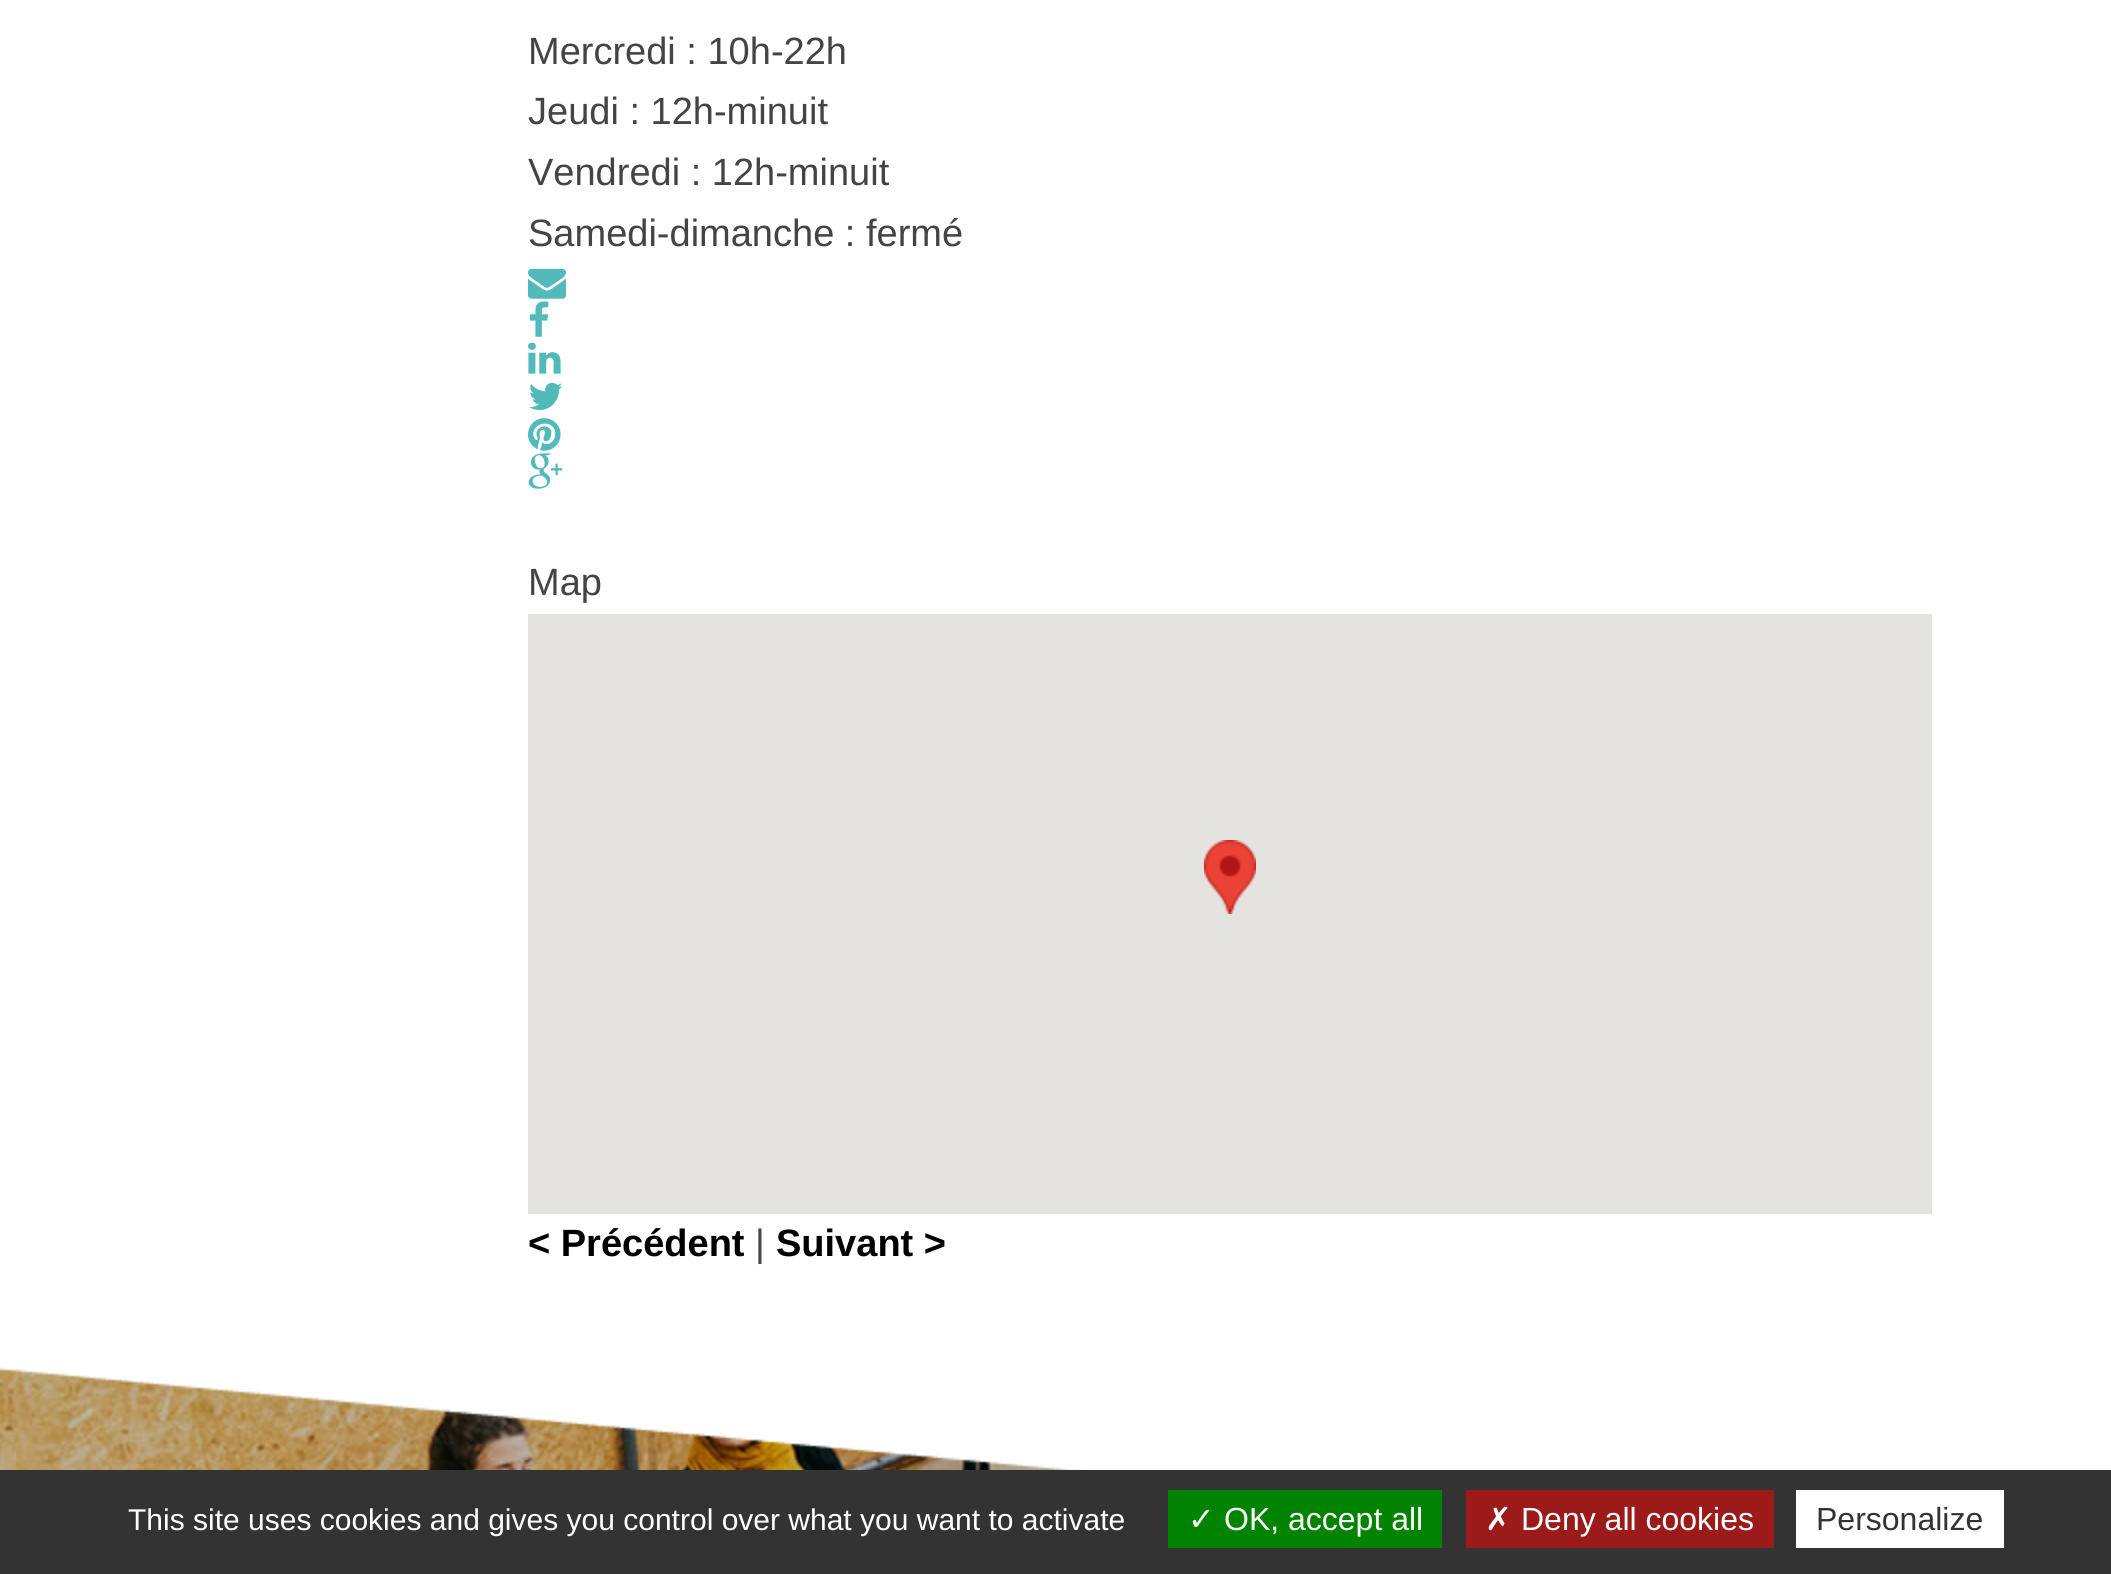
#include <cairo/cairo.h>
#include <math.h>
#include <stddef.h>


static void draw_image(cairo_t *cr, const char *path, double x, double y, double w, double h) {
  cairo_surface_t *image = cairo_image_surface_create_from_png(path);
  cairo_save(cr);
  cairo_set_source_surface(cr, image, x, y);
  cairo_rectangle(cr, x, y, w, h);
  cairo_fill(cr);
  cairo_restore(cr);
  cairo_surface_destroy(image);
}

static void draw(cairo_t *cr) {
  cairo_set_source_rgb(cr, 1, 1, 1);
  cairo_paint(cr);
  draw_image(cr, "images/1.png", 528, 268, 38, 31);
  draw_image(cr, "images/2.png", 530, 301, 19, 36);
  draw_image(cr, "images/3.png", 528, 342, 33, 32);
  draw_image(cr, "images/4.png", 529, 382, 34, 28);
  draw_image(cr, "images/5.png", 528, 418, 33, 33);
  draw_image(cr, "images/6.png", 528, 453, 35, 36);
  cairo_set_source_rgb(cr, 229 / 255.0, 227 / 255.0, 223 / 255.0);
  cairo_rectangle(cr, 528, 614, 1404, 600);
  cairo_fill(cr);
  draw_image(cr, "images/7.png", 1204, 840, 52, 74);
  draw_image(cr, "images/8.png", 0, 1367, 1087, 103);
  draw_image(cr, "images/9.png", 0, 1332, 2111, 138);
  cairo_set_source_rgb(cr, 51 / 255.0, 51 / 255.0, 51 / 255.0);
  cairo_rectangle(cr, 0, 1470, 2111, 104);
  cairo_fill(cr);
  cairo_set_source_rgb(cr, 0, 131 / 255.0, 0);
  cairo_rectangle(cr, 1168, 1490, 274, 58);
  cairo_fill(cr);
  cairo_set_source_rgb(cr, 156 / 255.0, 26 / 255.0, 26 / 255.0);
  cairo_rectangle(cr, 1466, 1490, 308, 58);
  cairo_fill(cr);
  cairo_set_source_rgb(cr, 1, 1, 1);
  cairo_rectangle(cr, 1796, 1490, 208, 58);
  cairo_fill(cr);
  cairo_select_font_face(cr, "Arimo", CAIRO_FONT_SLANT_NORMAL, CAIRO_FONT_WEIGHT_NORMAL);
  cairo_set_font_size(cr, 38);
  cairo_set_source_rgb(cr, 68 / 255.0, 68 / 255.0, 68 / 255.0);
  cairo_move_to(cr, 528, 64);
  cairo_show_text(cr, "Mercredi : 10h-22h");
  cairo_move_to(cr, 528, 124);
  cairo_show_text(cr, "Jeudi : 12h-minuit");
  cairo_move_to(cr, 528, 185);
  cairo_show_text(cr, "Vendredi : 12h-minuit");
  cairo_move_to(cr, 528, 246);
  cairo_show_text(cr, "Samedi-dimanche : fermé");
  cairo_move_to(cr, 528, 595);
  cairo_show_text(cr, "Map");
  cairo_select_font_face(cr, "Arimo", CAIRO_FONT_SLANT_NORMAL, CAIRO_FONT_WEIGHT_BOLD);
  cairo_set_source_rgb(cr, 0, 0, 0);
  cairo_move_to(cr, 528, 1256);
  cairo_show_text(cr, "< Précédent");
  cairo_select_font_face(cr, "Arimo", CAIRO_FONT_SLANT_NORMAL, CAIRO_FONT_WEIGHT_NORMAL);
  cairo_set_source_rgb(cr, 68 / 255.0, 68 / 255.0, 68 / 255.0);
  cairo_move_to(cr, 755, 1256);
  cairo_show_text(cr, "|");
  cairo_select_font_face(cr, "Arimo", CAIRO_FONT_SLANT_NORMAL, CAIRO_FONT_WEIGHT_BOLD);
  cairo_set_source_rgb(cr, 0, 0, 0);
  cairo_move_to(cr, 776, 1256);
  cairo_show_text(cr, "Suivant >");
  cairo_select_font_face(cr, "Liberation Sans", CAIRO_FONT_SLANT_NORMAL, CAIRO_FONT_WEIGHT_NORMAL);
  cairo_set_font_size(cr, 30);
  cairo_set_source_rgb(cr, 1, 1, 1);
  cairo_move_to(cr, 128, 1530);
  cairo_show_text(cr, "This site uses cookies and gives you control over what you want to activate");
  cairo_select_font_face(cr, "DejaVu Sans", CAIRO_FONT_SLANT_NORMAL, CAIRO_FONT_WEIGHT_NORMAL);
  cairo_set_font_size(cr, 32);
  cairo_move_to(cr, 1188, 1530);
  cairo_show_text(cr, "✓");
  cairo_select_font_face(cr, "Liberation Sans", CAIRO_FONT_SLANT_NORMAL, CAIRO_FONT_WEIGHT_NORMAL);
  cairo_move_to(cr, 1224, 1530);
  cairo_show_text(cr, "OK, accept all");
  cairo_select_font_face(cr, "DejaVu Sans", CAIRO_FONT_SLANT_NORMAL, CAIRO_FONT_WEIGHT_NORMAL);
  cairo_move_to(cr, 1485, 1530);
  cairo_show_text(cr, "✗");
  cairo_select_font_face(cr, "Liberation Sans", CAIRO_FONT_SLANT_NORMAL, CAIRO_FONT_WEIGHT_NORMAL);
  cairo_move_to(cr, 1521, 1530);
  cairo_show_text(cr, "Deny all cookies");
  cairo_set_source_rgb(cr, 51 / 255.0, 51 / 255.0, 51 / 255.0);
  cairo_move_to(cr, 1816, 1530);
  cairo_show_text(cr, "Personalize");
}

int main(void) {
  cairo_surface_t *surface = cairo_image_surface_create(CAIRO_FORMAT_RGB24, 2111, 1574);
  cairo_t *cr = cairo_create(surface);
  cairo_font_options_t *options = cairo_font_options_create();
  cairo_font_options_set_hint_metrics(options, CAIRO_HINT_METRICS_OFF);
  cairo_font_options_set_hint_style(options, CAIRO_HINT_STYLE_NONE);
  cairo_set_font_options(cr, options);
  cairo_set_miter_limit(cr, 4);
  draw(cr);
  cairo_surface_write_to_png(surface, "out.png");
  cairo_font_options_destroy(options);
  cairo_destroy(cr);
  cairo_surface_destroy(surface);
  return 0;
}
